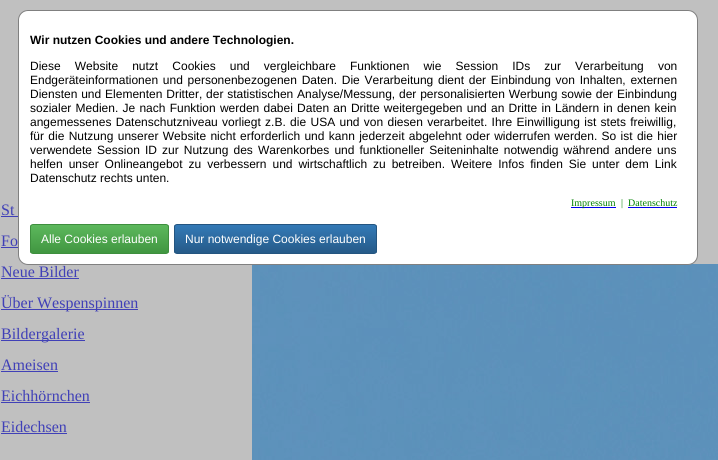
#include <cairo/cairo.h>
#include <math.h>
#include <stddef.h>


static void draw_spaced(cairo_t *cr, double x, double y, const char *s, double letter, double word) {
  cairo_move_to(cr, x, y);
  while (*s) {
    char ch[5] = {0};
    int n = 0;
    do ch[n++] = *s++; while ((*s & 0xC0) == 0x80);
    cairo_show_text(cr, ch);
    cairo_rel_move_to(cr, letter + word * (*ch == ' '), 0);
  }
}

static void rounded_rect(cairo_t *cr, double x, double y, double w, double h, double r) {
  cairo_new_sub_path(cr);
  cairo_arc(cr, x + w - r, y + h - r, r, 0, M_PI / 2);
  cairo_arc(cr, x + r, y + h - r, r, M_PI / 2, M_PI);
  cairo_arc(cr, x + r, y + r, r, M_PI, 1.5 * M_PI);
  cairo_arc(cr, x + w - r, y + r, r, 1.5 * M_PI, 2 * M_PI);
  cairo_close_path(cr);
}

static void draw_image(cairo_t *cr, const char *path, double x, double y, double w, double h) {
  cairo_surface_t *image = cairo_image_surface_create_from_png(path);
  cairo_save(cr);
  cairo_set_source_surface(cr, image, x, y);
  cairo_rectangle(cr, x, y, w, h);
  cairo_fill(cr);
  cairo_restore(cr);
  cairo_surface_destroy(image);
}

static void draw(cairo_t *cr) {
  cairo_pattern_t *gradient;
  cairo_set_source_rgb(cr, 192 / 255.0, 192 / 255.0, 192 / 255.0);
  cairo_paint(cr);
  draw_image(cr, "images/1.png", 252, 264, 466, 196);
  cairo_set_source_rgb(cr, 1, 1, 1);
  rounded_rect(cr, 18.5, 10.5, 679, 254, 9.5);
  cairo_fill_preserve(cr);
  cairo_set_source_rgb(cr, 128 / 255.0, 128 / 255.0, 128 / 255.0);
  cairo_set_line_width(cr, 1);
  cairo_stroke(cr);
  cairo_set_source_rgb(cr, 0, 0, 238 / 255.0);
  cairo_rectangle(cr, 571, 207, 45, 1);
  cairo_fill(cr);
  cairo_rectangle(cr, 628, 207, 49, 1);
  cairo_fill(cr);
  cairo_save(cr);
  rounded_rect(cr, 30, 224, 139, 30, 3);
  cairo_clip(cr);
  gradient = cairo_pattern_create_linear(100, 225, 100, 253);
  cairo_pattern_add_color_stop_rgba(gradient, 0, 92 / 255.0, 184 / 255.0, 92 / 255.0, 1);
  cairo_pattern_add_color_stop_rgba(gradient, 1, 65 / 255.0, 150 / 255.0, 65 / 255.0, 1);
  cairo_set_source(cr, gradient);
  cairo_pattern_destroy(gradient);
  cairo_rectangle(cr, 30, 225, 139, 28);
  cairo_fill(cr);
  cairo_restore(cr);
  rounded_rect(cr, 30.5, 224.5, 138, 29, 2.5);
  cairo_set_source_rgb(cr, 62 / 255.0, 143 / 255.0, 62 / 255.0);
  cairo_stroke(cr);
  cairo_save(cr);
  rounded_rect(cr, 174, 224, 203, 30, 3);
  cairo_clip(cr);
  gradient = cairo_pattern_create_linear(276, 225, 276, 253);
  cairo_pattern_add_color_stop_rgba(gradient, 0, 51 / 255.0, 122 / 255.0, 183 / 255.0, 1);
  cairo_pattern_add_color_stop_rgba(gradient, 1, 38 / 255.0, 90 / 255.0, 136 / 255.0, 1);
  cairo_set_source(cr, gradient);
  cairo_pattern_destroy(gradient);
  cairo_rectangle(cr, 174, 225, 203, 28);
  cairo_fill(cr);
  cairo_restore(cr);
  rounded_rect(cr, 174.5, 224.5, 202, 29, 2.5);
  cairo_set_source_rgb(cr, 36 / 255.0, 85 / 255.0, 128 / 255.0);
  cairo_stroke(cr);
  cairo_set_source_rgb(cr, 64 / 255.0, 64 / 255.0, 183 / 255.0);
  cairo_rectangle(cr, 1, 216, 17, 1);
  cairo_fill(cr);
  cairo_rectangle(cr, 1, 247, 17, 1);
  cairo_fill(cr);
  cairo_rectangle(cr, 1, 278, 78, 1);
  cairo_fill(cr);
  cairo_rectangle(cr, 1, 309, 137, 1);
  cairo_fill(cr);
  cairo_rectangle(cr, 1, 340, 84, 1);
  cairo_fill(cr);
  cairo_rectangle(cr, 1, 371, 57, 1);
  cairo_fill(cr);
  cairo_rectangle(cr, 1, 402, 89, 1);
  cairo_fill(cr);
  cairo_rectangle(cr, 1, 433, 66, 1);
  cairo_fill(cr);
  cairo_select_font_face(cr, "Liberation Sans", CAIRO_FONT_SLANT_NORMAL, CAIRO_FONT_WEIGHT_BOLD);
  cairo_set_font_size(cr, 12);
  cairo_set_source_rgb(cr, 0, 0, 0);
  cairo_move_to(cr, 30, 44);
  cairo_show_text(cr, "Wir nutzen Cookies und andere Technologien.");
  cairo_select_font_face(cr, "Liberation Sans", CAIRO_FONT_SLANT_NORMAL, CAIRO_FONT_WEIGHT_NORMAL);
  draw_spaced(cr, 30, 70, "Diese Website nutzt Cookies und vergleichbare Funktionen wie Session IDs zur Verarbeitung von", 0, 10.75);
  draw_spaced(cr, 30, 84, "Endgeräteinformationen und personenbezogenen Daten. Die Verarbeitung dient der Einbindung von Inhalten, externen", 0, 1.4);
  draw_spaced(cr, 30, 98, "Diensten und Elementen Dritter, der statistischen Analyse/Messung, der personalisierten Werbung sowie der Einbindung", 0, 0.5);
  draw_spaced(cr, 30, 112, "sozialer Medien. Je nach Funktion werden dabei Daten an Dritte weitergegeben und an Dritte in Ländern in denen kein", 0, 0.9);
  draw_spaced(cr, 30, 126, "angemessenes Datenschutzniveau vorliegt z.B. die USA und von diesen verarbeitet. Ihre Einwilligung ist stets freiwillig,", 0, 1);
  draw_spaced(cr, 30, 140, "für die Nutzung unserer Website nicht erforderlich und kann jederzeit abgelehnt oder widerrufen werden. So ist die hier", 0, 1);
  draw_spaced(cr, 30, 154, "verwendete Session ID zur Nutzung des Warenkorbes und funktioneller Seiteninhalte notwendig während andere uns", 0, 1.75);
  draw_spaced(cr, 30, 168, "helfen unser Onlineangebot zu verbessern und wirtschaftlich zu betreiben. Weitere Infos finden Sie unter dem Link", 0, 2.6);
  cairo_move_to(cr, 30, 182);
  cairo_show_text(cr, "Datenschutz rechts unten.");
  cairo_select_font_face(cr, "Liberation Serif", CAIRO_FONT_SLANT_NORMAL, CAIRO_FONT_WEIGHT_NORMAL);
  cairo_set_font_size(cr, 10);
  cairo_set_source_rgb(cr, 0, 128 / 255.0, 0);
  cairo_move_to(cr, 571, 206);
  cairo_show_text(cr, "Impressum");
  cairo_move_to(cr, 621, 206);
  cairo_show_text(cr, "|");
  cairo_move_to(cr, 628, 206);
  cairo_show_text(cr, "Datenschutz");
  cairo_select_font_face(cr, "Liberation Sans", CAIRO_FONT_SLANT_NORMAL, CAIRO_FONT_WEIGHT_NORMAL);
  cairo_set_font_size(cr, 12);
  cairo_set_source_rgb(cr, 1, 1, 1);
  cairo_move_to(cr, 41, 243);
  cairo_show_text(cr, "Alle Cookies erlauben");
  cairo_move_to(cr, 185, 243);
  cairo_show_text(cr, "Nur notwendige Cookies erlauben");
  cairo_select_font_face(cr, "Liberation Serif", CAIRO_FONT_SLANT_NORMAL, CAIRO_FONT_WEIGHT_NORMAL);
  cairo_set_font_size(cr, 16);
  cairo_set_source_rgb(cr, 64 / 255.0, 64 / 255.0, 183 / 255.0);
  cairo_move_to(cr, 1, 215);
  cairo_show_text(cr, "St");
  cairo_move_to(cr, 1, 246);
  cairo_show_text(cr, "Fo");
  cairo_move_to(cr, 1, 277);
  cairo_show_text(cr, "Neue Bilder");
  cairo_move_to(cr, 1, 308);
  cairo_show_text(cr, "Über Wespenspinnen");
  cairo_move_to(cr, 1, 339);
  cairo_show_text(cr, "Bildergalerie");
  cairo_move_to(cr, 1, 370);
  cairo_show_text(cr, "Ameisen");
  cairo_move_to(cr, 1, 401);
  cairo_show_text(cr, "Eichhörnchen");
  cairo_move_to(cr, 1, 432);
  cairo_show_text(cr, "Eidechsen");
}

int main(void) {
  cairo_surface_t *surface = cairo_image_surface_create(CAIRO_FORMAT_RGB24, 718, 460);
  cairo_t *cr = cairo_create(surface);
  cairo_font_options_t *options = cairo_font_options_create();
  cairo_font_options_set_hint_metrics(options, CAIRO_HINT_METRICS_OFF);
  cairo_font_options_set_hint_style(options, CAIRO_HINT_STYLE_NONE);
  cairo_set_font_options(cr, options);
  cairo_set_miter_limit(cr, 4);
  draw(cr);
  cairo_surface_write_to_png(surface, "out.png");
  cairo_font_options_destroy(options);
  cairo_destroy(cr);
  cairo_surface_destroy(surface);
  return 0;
}
